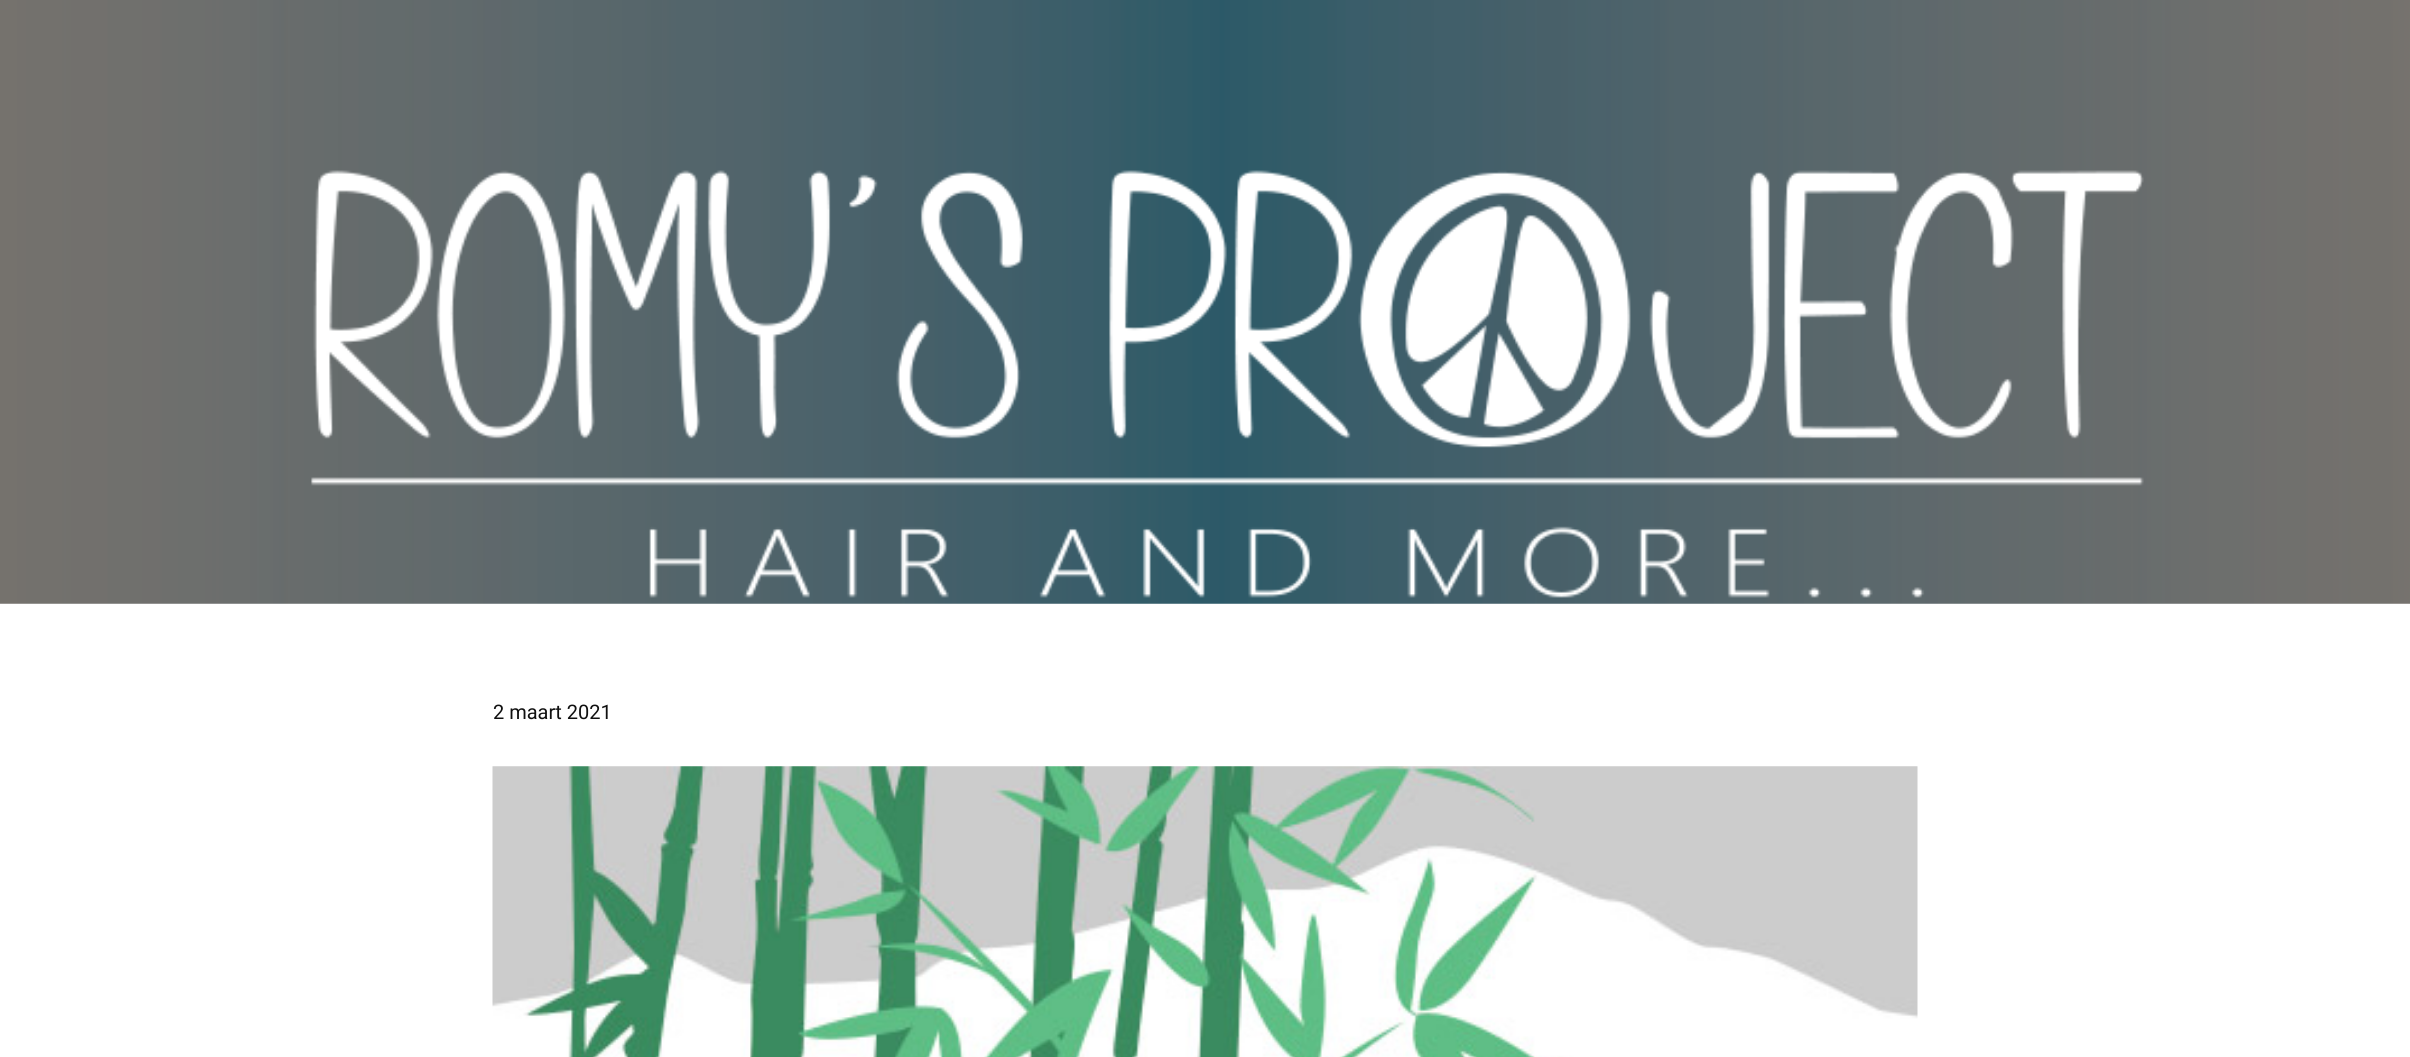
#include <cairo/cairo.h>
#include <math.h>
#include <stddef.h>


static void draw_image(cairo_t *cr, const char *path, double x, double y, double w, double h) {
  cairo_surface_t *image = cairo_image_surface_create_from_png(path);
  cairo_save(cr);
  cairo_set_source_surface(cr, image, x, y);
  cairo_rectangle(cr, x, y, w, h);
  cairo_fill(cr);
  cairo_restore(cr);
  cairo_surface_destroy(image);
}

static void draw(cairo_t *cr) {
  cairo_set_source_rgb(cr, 1, 1, 1);
  cairo_paint(cr);
  draw_image(cr, "images/1.png", 0, 0, 2410, 604);
  draw_image(cr, "images/2.png", 492, 766, 1426, 291);
  cairo_select_font_face(cr, "Roboto", CAIRO_FONT_SLANT_NORMAL, CAIRO_FONT_WEIGHT_NORMAL);
  cairo_set_font_size(cr, 20);
  cairo_set_source_rgb(cr, 17 / 255.0, 17 / 255.0, 17 / 255.0);
  cairo_move_to(cr, 493, 719);
  cairo_show_text(cr, "2 maart 2021");
}

int main(void) {
  cairo_surface_t *surface = cairo_image_surface_create(CAIRO_FORMAT_RGB24, 2410, 1057);
  cairo_t *cr = cairo_create(surface);
  cairo_font_options_t *options = cairo_font_options_create();
  cairo_font_options_set_hint_metrics(options, CAIRO_HINT_METRICS_OFF);
  cairo_font_options_set_hint_style(options, CAIRO_HINT_STYLE_NONE);
  cairo_set_font_options(cr, options);
  cairo_set_miter_limit(cr, 4);
  draw(cr);
  cairo_surface_write_to_png(surface, "out.png");
  cairo_font_options_destroy(options);
  cairo_destroy(cr);
  cairo_surface_destroy(surface);
  return 0;
}
